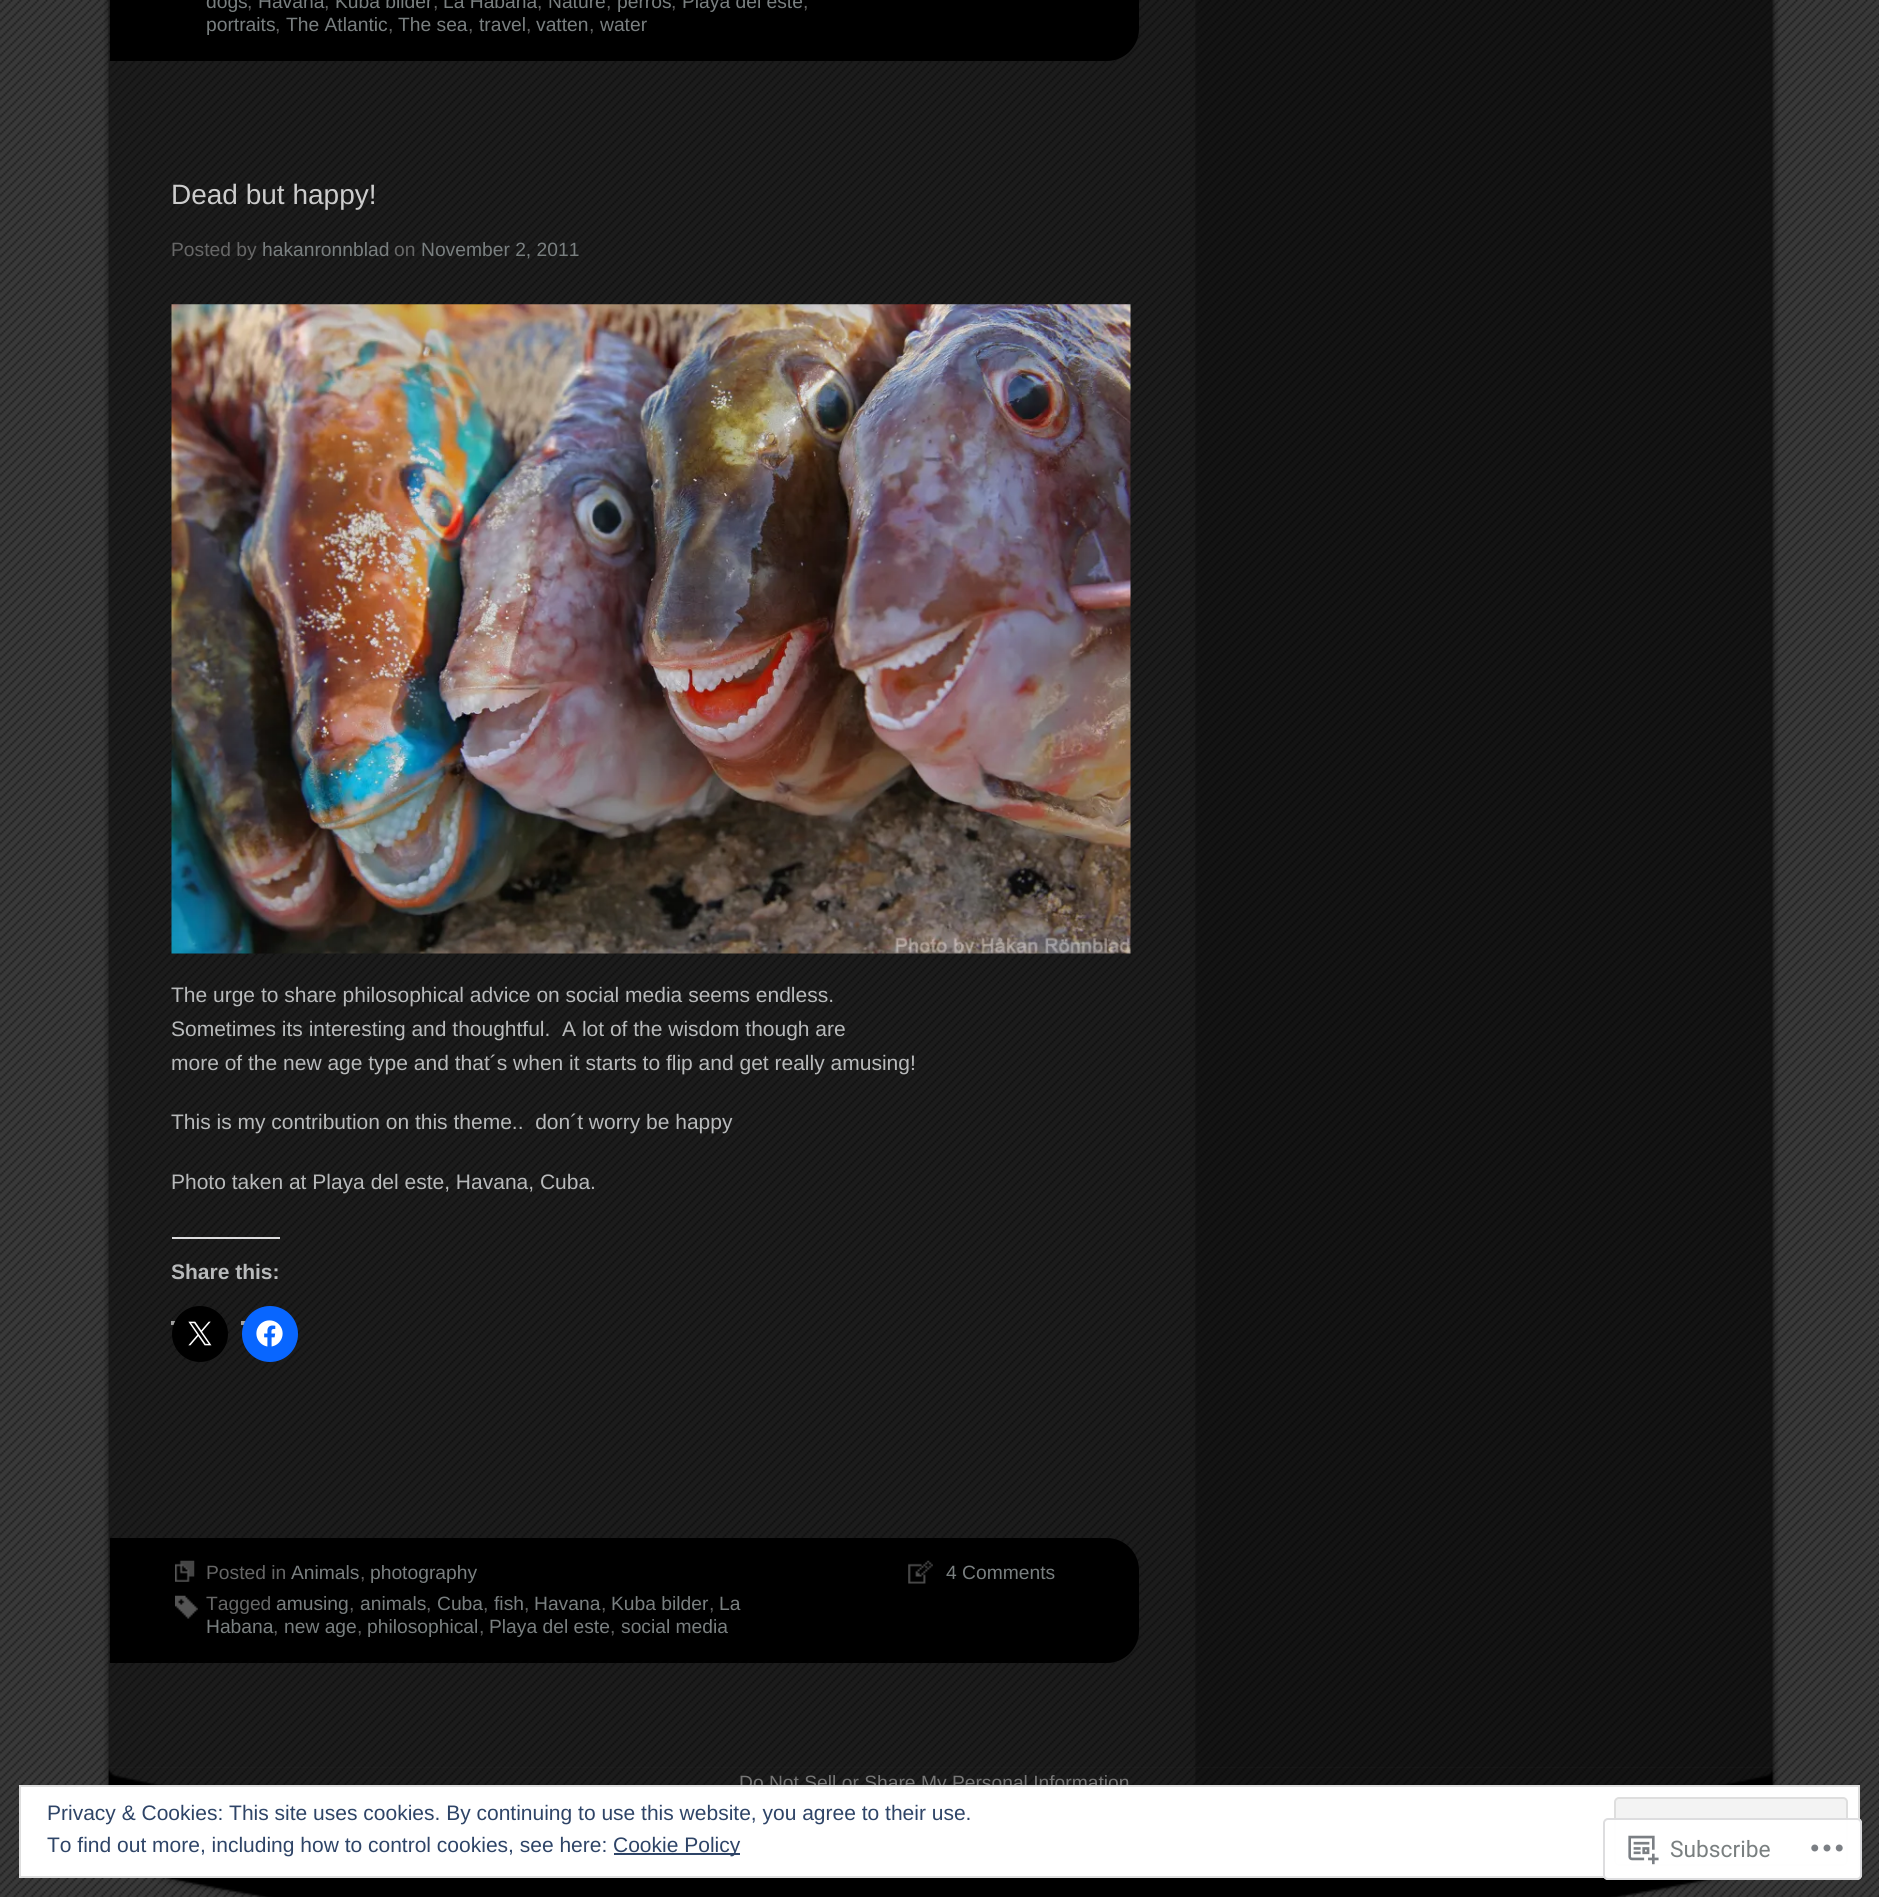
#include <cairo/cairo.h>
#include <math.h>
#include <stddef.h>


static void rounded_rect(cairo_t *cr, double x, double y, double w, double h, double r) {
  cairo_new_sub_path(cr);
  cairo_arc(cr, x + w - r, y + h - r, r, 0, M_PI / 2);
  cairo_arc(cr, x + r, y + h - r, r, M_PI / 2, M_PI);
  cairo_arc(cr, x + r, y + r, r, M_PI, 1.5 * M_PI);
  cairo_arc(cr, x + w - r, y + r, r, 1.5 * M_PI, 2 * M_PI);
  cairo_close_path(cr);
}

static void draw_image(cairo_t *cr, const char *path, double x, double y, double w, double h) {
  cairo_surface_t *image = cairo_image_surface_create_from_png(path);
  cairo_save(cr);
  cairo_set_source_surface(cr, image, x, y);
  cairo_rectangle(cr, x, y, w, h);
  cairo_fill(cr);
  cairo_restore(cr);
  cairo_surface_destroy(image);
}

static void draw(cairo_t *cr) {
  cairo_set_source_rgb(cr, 1, 1, 1);
  cairo_paint(cr);
  draw_image(cr, "images/1.png", 0, 0, 1879, 1897);
  draw_image(cr, "images/9.png", 104, 1767, 1674, 130);
  draw_image(cr, "images/2.png", 104, 0, 1674, 1768);
  cairo_set_source_rgb(cr, 0, 0, 0);
  cairo_new_path(cr);
  cairo_move_to(cr, 110, -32);
  cairo_line_to(cr, 1107, -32);
  cairo_curve_to(cr, 1124.5, -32, 1139, -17.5, 1139, 0);
  cairo_line_to(cr, 1139, 29);
  cairo_curve_to(cr, 1139, 46.5, 1124.5, 61, 1107, 61);
  cairo_line_to(cr, 110, 61);
  cairo_close_path(cr);
  cairo_fill(cr);
  draw_image(cr, "images/3.png", 171, 304, 960, 650);
  cairo_set_source_rgb(cr, 220 / 255.0, 220 / 255.0, 222 / 255.0);
  cairo_rectangle(cr, 172, 1237, 108, 2);
  cairo_fill(cr);
  cairo_set_source_rgb(cr, 162 / 255.0, 162 / 255.0, 162 / 255.0);
  cairo_rectangle(cr, 171, 1321, 6, 4);
  cairo_fill(cr);
  cairo_set_source_rgb(cr, 0, 0, 0);
  cairo_arc(cr, 200, 1334, 28, 0, 2 * M_PI);
  cairo_fill(cr);
  draw_image(cr, "images/4.png", 188, 1321, 24, 25);
  cairo_set_source_rgb(cr, 162 / 255.0, 162 / 255.0, 162 / 255.0);
  cairo_rectangle(cr, 241, 1321, 6, 4);
  cairo_fill(cr);
  cairo_set_source_rgb(cr, 8 / 255.0, 102 / 255.0, 1);
  cairo_arc(cr, 270, 1334, 28, 0, 2 * M_PI);
  cairo_fill(cr);
  draw_image(cr, "images/5.png", 256, 1320, 27, 27);
  cairo_set_source_rgb(cr, 0, 0, 0);
  cairo_new_path(cr);
  cairo_move_to(cr, 110, 1538);
  cairo_line_to(cr, 1107, 1538);
  cairo_curve_to(cr, 1124.5, 1538, 1139, 1552.5, 1139, 1570);
  cairo_line_to(cr, 1139, 1631);
  cairo_curve_to(cr, 1139, 1648.5, 1124.5, 1663, 1107, 1663);
  cairo_line_to(cr, 110, 1663);
  cairo_close_path(cr);
  cairo_fill(cr);
  draw_image(cr, "images/6.png", 175, 1560, 20, 22);
  draw_image(cr, "images/7.png", 908, 1560, 25, 24);
  draw_image(cr, "images/8.png", 175, 1595, 23, 24);
  cairo_select_font_face(cr, "Liberation Sans", CAIRO_FONT_SLANT_NORMAL, CAIRO_FONT_WEIGHT_NORMAL);
  cairo_set_font_size(cr, 19.25);
  cairo_set_source_rgb(cr, 121 / 255.0, 127 / 255.0, 128 / 255.0);
  cairo_move_to(cr, 206, 8);
  cairo_show_text(cr, "dogs");
  cairo_set_source_rgb(cr, 102 / 255.0, 102 / 255.0, 102 / 255.0);
  cairo_move_to(cr, 247, 8);
  cairo_show_text(cr, ",");
  cairo_set_source_rgb(cr, 121 / 255.0, 127 / 255.0, 128 / 255.0);
  cairo_move_to(cr, 258, 8);
  cairo_show_text(cr, "Havana");
  cairo_set_source_rgb(cr, 102 / 255.0, 102 / 255.0, 102 / 255.0);
  cairo_move_to(cr, 324, 8);
  cairo_show_text(cr, ",");
  cairo_set_source_rgb(cr, 121 / 255.0, 127 / 255.0, 128 / 255.0);
  cairo_move_to(cr, 335, 8);
  cairo_show_text(cr, "Kuba bilder");
  cairo_set_source_rgb(cr, 102 / 255.0, 102 / 255.0, 102 / 255.0);
  cairo_move_to(cr, 433, 8);
  cairo_show_text(cr, ",");
  cairo_set_source_rgb(cr, 121 / 255.0, 127 / 255.0, 128 / 255.0);
  cairo_move_to(cr, 443, 8);
  cairo_show_text(cr, "La Habana");
  cairo_set_source_rgb(cr, 102 / 255.0, 102 / 255.0, 102 / 255.0);
  cairo_move_to(cr, 537, 8);
  cairo_show_text(cr, ",");
  cairo_set_source_rgb(cr, 121 / 255.0, 127 / 255.0, 128 / 255.0);
  cairo_move_to(cr, 548, 8);
  cairo_show_text(cr, "Nature");
  cairo_set_source_rgb(cr, 102 / 255.0, 102 / 255.0, 102 / 255.0);
  cairo_move_to(cr, 606, 8);
  cairo_show_text(cr, ",");
  cairo_set_source_rgb(cr, 121 / 255.0, 127 / 255.0, 128 / 255.0);
  cairo_move_to(cr, 617, 8);
  cairo_show_text(cr, "perros");
  cairo_set_source_rgb(cr, 102 / 255.0, 102 / 255.0, 102 / 255.0);
  cairo_move_to(cr, 671, 8);
  cairo_show_text(cr, ",");
  cairo_set_source_rgb(cr, 121 / 255.0, 127 / 255.0, 128 / 255.0);
  cairo_move_to(cr, 682, 8);
  cairo_show_text(cr, "Playa del este");
  cairo_set_source_rgb(cr, 102 / 255.0, 102 / 255.0, 102 / 255.0);
  cairo_move_to(cr, 803, 8);
  cairo_show_text(cr, ",");
  cairo_set_source_rgb(cr, 121 / 255.0, 127 / 255.0, 128 / 255.0);
  cairo_move_to(cr, 206, 31);
  cairo_show_text(cr, "portraits");
  cairo_set_source_rgb(cr, 102 / 255.0, 102 / 255.0, 102 / 255.0);
  cairo_move_to(cr, 275, 31);
  cairo_show_text(cr, ",");
  cairo_set_source_rgb(cr, 121 / 255.0, 127 / 255.0, 128 / 255.0);
  cairo_move_to(cr, 286, 31);
  cairo_show_text(cr, "The Atlantic");
  cairo_set_source_rgb(cr, 102 / 255.0, 102 / 255.0, 102 / 255.0);
  cairo_move_to(cr, 388, 31);
  cairo_show_text(cr, ",");
  cairo_set_source_rgb(cr, 121 / 255.0, 127 / 255.0, 128 / 255.0);
  cairo_move_to(cr, 398, 31);
  cairo_show_text(cr, "The sea");
  cairo_set_source_rgb(cr, 102 / 255.0, 102 / 255.0, 102 / 255.0);
  cairo_move_to(cr, 468, 31);
  cairo_show_text(cr, ",");
  cairo_set_source_rgb(cr, 121 / 255.0, 127 / 255.0, 128 / 255.0);
  cairo_move_to(cr, 479, 31);
  cairo_show_text(cr, "travel");
  cairo_set_source_rgb(cr, 102 / 255.0, 102 / 255.0, 102 / 255.0);
  cairo_move_to(cr, 526, 31);
  cairo_show_text(cr, ",");
  cairo_set_source_rgb(cr, 121 / 255.0, 127 / 255.0, 128 / 255.0);
  cairo_move_to(cr, 536, 31);
  cairo_show_text(cr, "vatten");
  cairo_set_source_rgb(cr, 102 / 255.0, 102 / 255.0, 102 / 255.0);
  cairo_move_to(cr, 589, 31);
  cairo_show_text(cr, ",");
  cairo_set_source_rgb(cr, 121 / 255.0, 127 / 255.0, 128 / 255.0);
  cairo_move_to(cr, 600, 31);
  cairo_show_text(cr, "water");
  cairo_set_font_size(cr, 28);
  cairo_set_source_rgb(cr, 204 / 255.0, 204 / 255.0, 204 / 255.0);
  cairo_move_to(cr, 171, 204);
  cairo_show_text(cr, "Dead but happy!");
  cairo_set_font_size(cr, 19.25);
  cairo_set_source_rgb(cr, 102 / 255.0, 102 / 255.0, 102 / 255.0);
  cairo_move_to(cr, 171, 256);
  cairo_show_text(cr, "Posted by");
  cairo_set_source_rgb(cr, 121 / 255.0, 127 / 255.0, 128 / 255.0);
  cairo_move_to(cr, 262, 256);
  cairo_show_text(cr, "hakanronnblad");
  cairo_set_source_rgb(cr, 102 / 255.0, 102 / 255.0, 102 / 255.0);
  cairo_move_to(cr, 394, 256);
  cairo_show_text(cr, "on");
  cairo_set_source_rgb(cr, 121 / 255.0, 127 / 255.0, 128 / 255.0);
  cairo_move_to(cr, 421, 256);
  cairo_show_text(cr, "November 2, 2011");
  cairo_set_font_size(cr, 21);
  cairo_set_source_rgb(cr, 184 / 255.0, 186 / 255.0, 187 / 255.0);
  cairo_move_to(cr, 171, 1002);
  cairo_show_text(cr, "The urge to share philosophical advice on social media seems endless.");
  cairo_move_to(cr, 171, 1036);
  cairo_show_text(cr, "Sometimes its interesting and thoughtful.  A lot of the wisdom though are");
  cairo_move_to(cr, 171, 1070);
  cairo_show_text(cr, "more of the new age type and that´s when it starts to flip and get really amusing!");
  cairo_move_to(cr, 171, 1129);
  cairo_show_text(cr, "This is my contribution on this theme..  don´t worry be happy");
  cairo_move_to(cr, 171, 1189);
  cairo_show_text(cr, "Photo taken at Playa del este, Havana, Cuba.");
  cairo_select_font_face(cr, "Liberation Sans", CAIRO_FONT_SLANT_NORMAL, CAIRO_FONT_WEIGHT_BOLD);
  cairo_move_to(cr, 171, 1279);
  cairo_show_text(cr, "Share this:");
  cairo_select_font_face(cr, "Liberation Sans", CAIRO_FONT_SLANT_NORMAL, CAIRO_FONT_WEIGHT_NORMAL);
  cairo_set_font_size(cr, 19.25);
  cairo_set_source_rgb(cr, 102 / 255.0, 102 / 255.0, 102 / 255.0);
  cairo_move_to(cr, 206, 1579);
  cairo_show_text(cr, "Posted in");
  cairo_set_source_rgb(cr, 121 / 255.0, 127 / 255.0, 128 / 255.0);
  cairo_move_to(cr, 291, 1579);
  cairo_show_text(cr, "Animals");
  cairo_set_source_rgb(cr, 102 / 255.0, 102 / 255.0, 102 / 255.0);
  cairo_move_to(cr, 360, 1579);
  cairo_show_text(cr, ",");
  cairo_set_source_rgb(cr, 121 / 255.0, 127 / 255.0, 128 / 255.0);
  cairo_move_to(cr, 370, 1579);
  cairo_show_text(cr, "photography");
  cairo_move_to(cr, 946, 1579);
  cairo_show_text(cr, "4 Comments");
  cairo_set_source_rgb(cr, 102 / 255.0, 102 / 255.0, 102 / 255.0);
  cairo_move_to(cr, 206, 1610);
  cairo_show_text(cr, "Tagged");
  cairo_set_source_rgb(cr, 121 / 255.0, 127 / 255.0, 128 / 255.0);
  cairo_move_to(cr, 276, 1610);
  cairo_show_text(cr, "amusing");
  cairo_set_source_rgb(cr, 102 / 255.0, 102 / 255.0, 102 / 255.0);
  cairo_move_to(cr, 349, 1610);
  cairo_show_text(cr, ",");
  cairo_set_source_rgb(cr, 121 / 255.0, 127 / 255.0, 128 / 255.0);
  cairo_move_to(cr, 360, 1610);
  cairo_show_text(cr, "animals");
  cairo_set_source_rgb(cr, 102 / 255.0, 102 / 255.0, 102 / 255.0);
  cairo_move_to(cr, 426, 1610);
  cairo_show_text(cr, ",");
  cairo_set_source_rgb(cr, 121 / 255.0, 127 / 255.0, 128 / 255.0);
  cairo_move_to(cr, 437, 1610);
  cairo_show_text(cr, "Cuba");
  cairo_set_source_rgb(cr, 102 / 255.0, 102 / 255.0, 102 / 255.0);
  cairo_move_to(cr, 483, 1610);
  cairo_show_text(cr, ",");
  cairo_set_source_rgb(cr, 121 / 255.0, 127 / 255.0, 128 / 255.0);
  cairo_move_to(cr, 494, 1610);
  cairo_show_text(cr, "fish");
  cairo_set_source_rgb(cr, 102 / 255.0, 102 / 255.0, 102 / 255.0);
  cairo_move_to(cr, 524, 1610);
  cairo_show_text(cr, ",");
  cairo_set_source_rgb(cr, 121 / 255.0, 127 / 255.0, 128 / 255.0);
  cairo_move_to(cr, 534, 1610);
  cairo_show_text(cr, "Havana");
  cairo_set_source_rgb(cr, 102 / 255.0, 102 / 255.0, 102 / 255.0);
  cairo_move_to(cr, 601, 1610);
  cairo_show_text(cr, ",");
  cairo_set_source_rgb(cr, 121 / 255.0, 127 / 255.0, 128 / 255.0);
  cairo_move_to(cr, 611, 1610);
  cairo_show_text(cr, "Kuba bilder");
  cairo_set_source_rgb(cr, 102 / 255.0, 102 / 255.0, 102 / 255.0);
  cairo_move_to(cr, 709, 1610);
  cairo_show_text(cr, ",");
  cairo_set_source_rgb(cr, 121 / 255.0, 127 / 255.0, 128 / 255.0);
  cairo_move_to(cr, 719, 1610);
  cairo_show_text(cr, "La");
  cairo_move_to(cr, 206, 1633);
  cairo_show_text(cr, "Habana");
  cairo_set_source_rgb(cr, 102 / 255.0, 102 / 255.0, 102 / 255.0);
  cairo_move_to(cr, 273, 1633);
  cairo_show_text(cr, ",");
  cairo_set_source_rgb(cr, 121 / 255.0, 127 / 255.0, 128 / 255.0);
  cairo_move_to(cr, 284, 1633);
  cairo_show_text(cr, "new age");
  cairo_set_source_rgb(cr, 102 / 255.0, 102 / 255.0, 102 / 255.0);
  cairo_move_to(cr, 357, 1633);
  cairo_show_text(cr, ",");
  cairo_set_source_rgb(cr, 121 / 255.0, 127 / 255.0, 128 / 255.0);
  cairo_move_to(cr, 367, 1633);
  cairo_show_text(cr, "philosophical");
  cairo_set_source_rgb(cr, 102 / 255.0, 102 / 255.0, 102 / 255.0);
  cairo_move_to(cr, 479, 1633);
  cairo_show_text(cr, ",");
  cairo_set_source_rgb(cr, 121 / 255.0, 127 / 255.0, 128 / 255.0);
  cairo_move_to(cr, 489, 1633);
  cairo_show_text(cr, "Playa del este");
  cairo_set_source_rgb(cr, 102 / 255.0, 102 / 255.0, 102 / 255.0);
  cairo_move_to(cr, 610, 1633);
  cairo_show_text(cr, ",");
  cairo_set_source_rgb(cr, 121 / 255.0, 127 / 255.0, 128 / 255.0);
  cairo_move_to(cr, 621, 1633);
  cairo_show_text(cr, "social media");
  cairo_set_source_rgb(cr, 119 / 255.0, 119 / 255.0, 119 / 255.0);
  cairo_move_to(cr, 739, 1789);
  cairo_show_text(cr, "Do Not Sell or Share My Personal Information");
  cairo_set_source_rgb(cr, 1, 1, 1);
  cairo_rectangle(cr, 20, 1786, 1839, 91);
  cairo_fill_preserve(cr);
  cairo_set_source_rgb(cr, 222 / 255.0, 222 / 255.0, 222 / 255.0);
  cairo_stroke(cr);
  cairo_set_font_size(cr, 21);
  cairo_set_source_rgb(cr, 46 / 255.0, 68 / 255.0, 103 / 255.0);
  cairo_move_to(cr, 47, 1820);
  cairo_show_text(cr, "Privacy & Cookies: This site uses cookies. By continuing to use this website, you agree to their use.");
  cairo_set_source_rgb(cr, 243 / 255.0, 243 / 255.0, 243 / 255.0);
  rounded_rect(cr, 1615, 1798, 232, 67, 4);
  cairo_fill_preserve(cr);
  cairo_set_source_rgb(cr, 222 / 255.0, 222 / 255.0, 222 / 255.0);
  cairo_stroke(cr);
  cairo_set_source_rgb(cr, 46 / 255.0, 68 / 255.0, 103 / 255.0);
  cairo_move_to(cr, 47, 1852);
  cairo_show_text(cr, "To find out more, including how to control cookies, see here:");
  cairo_rectangle(cr, 614, 1853, 126, 2);
  cairo_fill(cr);
  cairo_move_to(cr, 613, 1852);
  cairo_show_text(cr, "Cookie Policy");
  cairo_set_source_rgba(cr, 1, 1, 1, 0.98);
  rounded_rect(cr, 1603, 1818, 259, 62, 5);
  cairo_fill(cr);
  rounded_rect(cr, 1604, 1819, 257, 60, 4);
  cairo_set_source_rgba(cr, 220 / 255.0, 220 / 255.0, 222 / 255.0, 0.98);
  cairo_stroke(cr);
  draw_image(cr, "images/10.png", 1628, 1835, 31, 30);
  cairo_select_font_face(cr, "Roboto", CAIRO_FONT_SLANT_NORMAL, CAIRO_FONT_WEIGHT_NORMAL);
  cairo_set_font_size(cr, 22.75);
  cairo_set_source_rgb(cr, 121 / 255.0, 127 / 255.0, 128 / 255.0);
  cairo_move_to(cr, 1670, 1857);
  cairo_show_text(cr, "Subscribe");
  draw_image(cr, "images/11.png", 1811, 1844, 32, 8);
}

int main(void) {
  cairo_surface_t *surface = cairo_image_surface_create(CAIRO_FORMAT_RGB24, 1879, 1897);
  cairo_t *cr = cairo_create(surface);
  cairo_font_options_t *options = cairo_font_options_create();
  cairo_font_options_set_hint_metrics(options, CAIRO_HINT_METRICS_OFF);
  cairo_font_options_set_hint_style(options, CAIRO_HINT_STYLE_NONE);
  cairo_set_font_options(cr, options);
  cairo_set_miter_limit(cr, 4);
  draw(cr);
  cairo_surface_write_to_png(surface, "out.png");
  cairo_font_options_destroy(options);
  cairo_destroy(cr);
  cairo_surface_destroy(surface);
  return 0;
}
